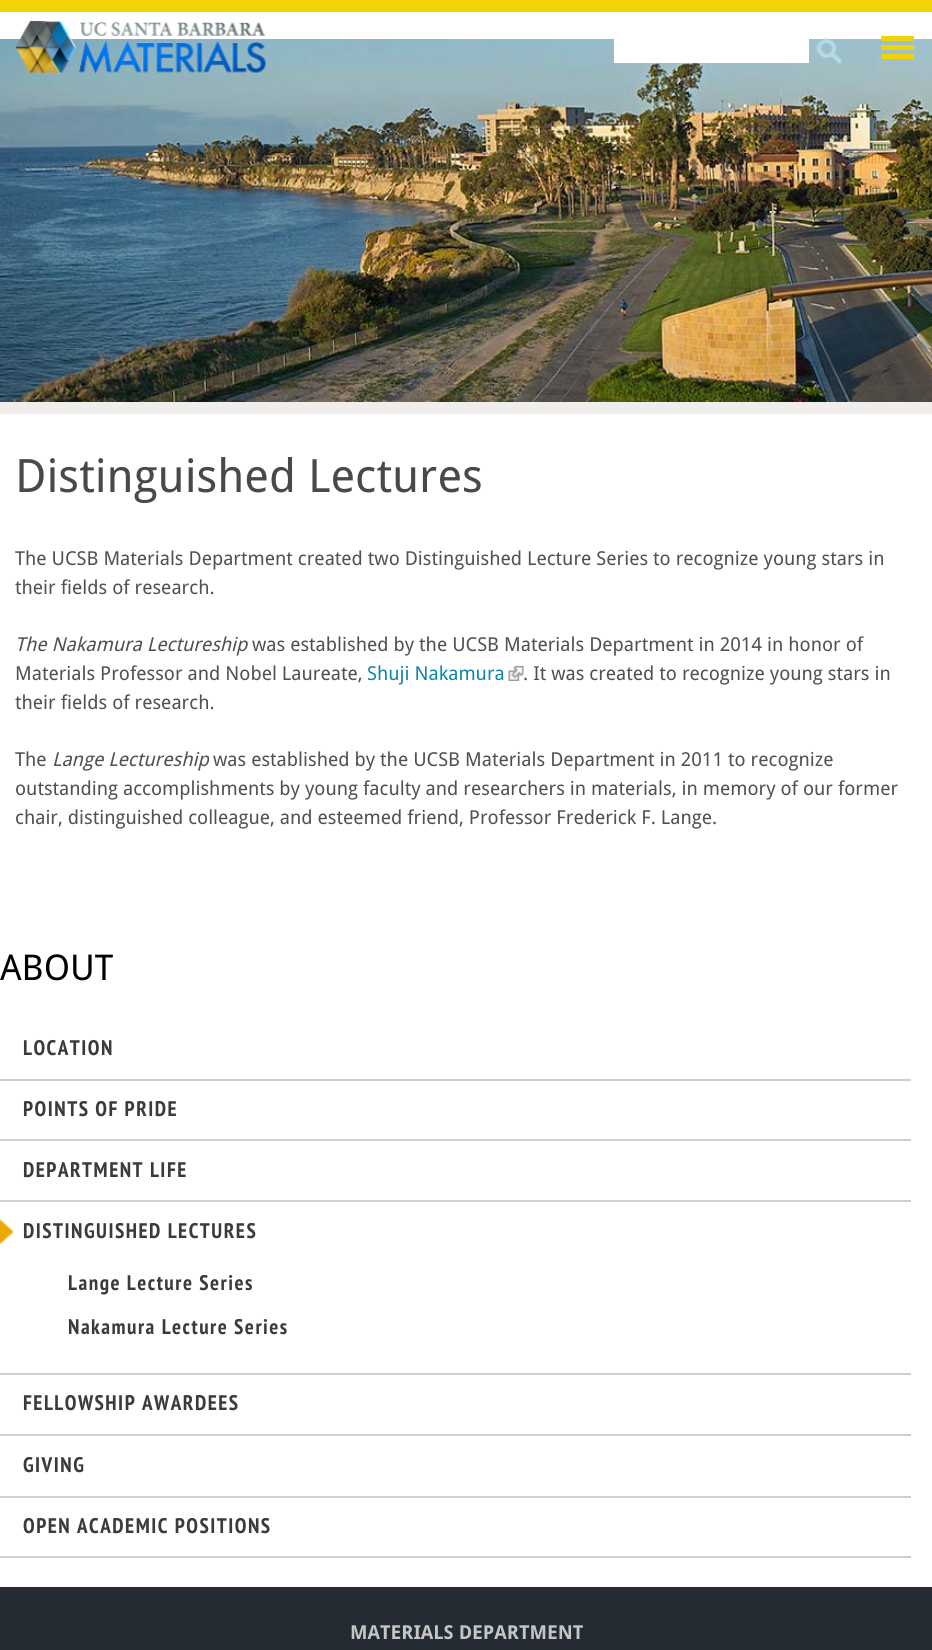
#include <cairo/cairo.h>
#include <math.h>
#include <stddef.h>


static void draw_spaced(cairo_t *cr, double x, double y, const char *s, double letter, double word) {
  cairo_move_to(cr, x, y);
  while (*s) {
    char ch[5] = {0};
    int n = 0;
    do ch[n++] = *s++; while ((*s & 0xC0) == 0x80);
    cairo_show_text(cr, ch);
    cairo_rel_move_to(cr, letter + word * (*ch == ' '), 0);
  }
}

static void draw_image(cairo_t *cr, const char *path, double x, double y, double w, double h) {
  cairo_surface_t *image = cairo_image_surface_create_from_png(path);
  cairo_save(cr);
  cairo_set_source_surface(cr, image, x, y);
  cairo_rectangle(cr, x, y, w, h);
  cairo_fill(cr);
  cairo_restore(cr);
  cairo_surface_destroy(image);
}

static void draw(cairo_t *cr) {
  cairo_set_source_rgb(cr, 1, 1, 1);
  cairo_paint(cr);
  cairo_set_source_rgb(cr, 242 / 255.0, 211 / 255.0, 6 / 255.0);
  cairo_rectangle(cr, 0, 0, 932, 12);
  cairo_fill(cr);
  draw_image(cr, "images/3.png", 0, 39, 932, 363);
  cairo_rectangle(cr, 881, 36, 33, 5);
  cairo_fill(cr);
  cairo_rectangle(cr, 881, 45, 33, 5);
  cairo_fill(cr);
  cairo_rectangle(cr, 881, 54, 33, 5);
  cairo_fill(cr);
  draw_image(cr, "images/1.png", 15, 21, 251, 53);
  cairo_set_source_rgb(cr, 1, 1, 1);
  cairo_rectangle(cr, 614, 39, 195, 24);
  cairo_fill(cr);
  draw_image(cr, "images/2.png", 816, 37, 26, 28);
  cairo_set_source_rgb(cr, 239 / 255.0, 238 / 255.0, 236 / 255.0);
  cairo_rectangle(cr, 0, 402, 932, 12);
  cairo_fill(cr);
  draw_image(cr, "images/4.png", 508, 666, 16, 15);
  cairo_set_source_rgb(cr, 207 / 255.0, 207 / 255.0, 207 / 255.0);
  cairo_rectangle(cr, 0, 1079, 911, 2);
  cairo_fill(cr);
  cairo_rectangle(cr, 0, 1139, 911, 2);
  cairo_fill(cr);
  cairo_rectangle(cr, 0, 1200, 911, 2);
  cairo_fill(cr);
  cairo_rectangle(cr, 0, 1373, 911, 2);
  cairo_fill(cr);
  draw_image(cr, "images/5.png", 0, 1219, 14, 26);
  cairo_rectangle(cr, 0, 1434, 911, 2);
  cairo_fill(cr);
  cairo_rectangle(cr, 0, 1496, 911, 2);
  cairo_fill(cr);
  cairo_rectangle(cr, 0, 1556, 911, 2);
  cairo_fill(cr);
  cairo_set_source_rgb(cr, 36 / 255.0, 43 / 255.0, 50 / 255.0);
  cairo_rectangle(cr, 0, 1587, 932, 63);
  cairo_fill(cr);
  cairo_select_font_face(cr, "Droid Sans", CAIRO_FONT_SLANT_NORMAL, CAIRO_FONT_WEIGHT_NORMAL);
  cairo_set_font_size(cr, 46);
  cairo_set_source_rgb(cr, 73 / 255.0, 73 / 255.0, 73 / 255.0);
  cairo_move_to(cr, 15, 492);
  cairo_show_text(cr, "Distinguished Lectures");
  cairo_set_font_size(cr, 19.2);
  cairo_set_source_rgb(cr, 81 / 255.0, 81 / 255.0, 81 / 255.0);
  cairo_move_to(cr, 15, 565);
  cairo_show_text(cr, "The UCSB Materials Department created two Distinguished Lecture Series to recognize young stars in");
  cairo_move_to(cr, 15, 594);
  cairo_show_text(cr, "their fields of research.");
  cairo_select_font_face(cr, "Droid Sans", CAIRO_FONT_SLANT_ITALIC, CAIRO_FONT_WEIGHT_NORMAL);
  cairo_move_to(cr, 15, 651);
  cairo_show_text(cr, "The Nakamura Lectureship");
  cairo_select_font_face(cr, "Droid Sans", CAIRO_FONT_SLANT_NORMAL, CAIRO_FONT_WEIGHT_NORMAL);
  cairo_move_to(cr, 252, 651);
  cairo_show_text(cr, "was established by the UCSB Materials Department in 2014 in honor of");
  cairo_move_to(cr, 15, 680);
  cairo_show_text(cr, "Materials Professor and Nobel Laureate,");
  cairo_set_source_rgb(cr, 13 / 255.0, 135 / 255.0, 170 / 255.0);
  cairo_move_to(cr, 367, 680);
  cairo_show_text(cr, "Shuji Nakamura");
  cairo_set_source_rgb(cr, 81 / 255.0, 81 / 255.0, 81 / 255.0);
  cairo_move_to(cr, 523, 680);
  cairo_show_text(cr, ". It was created to recognize young stars in");
  cairo_move_to(cr, 15, 709);
  cairo_show_text(cr, "their fields of research.");
  cairo_move_to(cr, 15, 766);
  cairo_show_text(cr, "The");
  cairo_select_font_face(cr, "Droid Sans", CAIRO_FONT_SLANT_ITALIC, CAIRO_FONT_WEIGHT_NORMAL);
  cairo_move_to(cr, 52, 766);
  cairo_show_text(cr, "Lange Lectureship");
  cairo_select_font_face(cr, "Droid Sans", CAIRO_FONT_SLANT_NORMAL, CAIRO_FONT_WEIGHT_NORMAL);
  cairo_move_to(cr, 213, 766);
  cairo_show_text(cr, "was established by the UCSB Materials Department in 2011 to recognize");
  cairo_move_to(cr, 15, 795);
  cairo_show_text(cr, "outstanding accomplishments by young faculty and researchers in materials, in memory of our former");
  cairo_move_to(cr, 15, 824);
  cairo_show_text(cr, "chair, distinguished colleague, and esteemed friend, Professor Frederick F. Lange.");
  cairo_set_font_size(cr, 35.5);
  cairo_set_source_rgb(cr, 0, 0, 0);
  cairo_move_to(cr, 0, 980);
  cairo_show_text(cr, "ABOUT");
  cairo_select_font_face(cr, "PT Sans Narrow", CAIRO_FONT_SLANT_NORMAL, CAIRO_FONT_WEIGHT_BOLD);
  cairo_set_font_size(cr, 21.1);
  cairo_set_source_rgb(cr, 59 / 255.0, 59 / 255.0, 59 / 255.0);
  draw_spaced(cr, 23, 1055, "LOCATION", 1.5, 0);
  draw_spaced(cr, 23, 1116, "POINTS OF PRIDE", 1.5, 0);
  draw_spaced(cr, 23, 1177, "DEPARTMENT LIFE", 1.5, 0);
  draw_spaced(cr, 23, 1238, "DISTINGUISHED LECTURES", 1.5, 0);
  draw_spaced(cr, 68, 1290, "Lange Lecture Series", 1.5, 0);
  draw_spaced(cr, 68, 1334, "Nakamura Lecture Series", 1.5, 0);
  draw_spaced(cr, 23, 1410, "FELLOWSHIP AWARDEES", 1.5, 0);
  draw_spaced(cr, 23, 1472, "GIVING", 1.5, 0);
  draw_spaced(cr, 23, 1533, "OPEN ACADEMIC POSITIONS", 1.5, 0);
  cairo_select_font_face(cr, "Droid Sans", CAIRO_FONT_SLANT_NORMAL, CAIRO_FONT_WEIGHT_BOLD);
  cairo_set_font_size(cr, 19.2);
  cairo_set_source_rgb(cr, 197 / 255.0, 197 / 255.0, 197 / 255.0);
  cairo_move_to(cr, 350, 1639);
  cairo_show_text(cr, "MATERIALS DEPARTMENT");
}

int main(void) {
  cairo_surface_t *surface = cairo_image_surface_create(CAIRO_FORMAT_RGB24, 932, 1650);
  cairo_t *cr = cairo_create(surface);
  cairo_font_options_t *options = cairo_font_options_create();
  cairo_font_options_set_hint_metrics(options, CAIRO_HINT_METRICS_OFF);
  cairo_font_options_set_hint_style(options, CAIRO_HINT_STYLE_NONE);
  cairo_set_font_options(cr, options);
  cairo_set_miter_limit(cr, 4);
  draw(cr);
  cairo_surface_write_to_png(surface, "out.png");
  cairo_font_options_destroy(options);
  cairo_destroy(cr);
  cairo_surface_destroy(surface);
  return 0;
}
